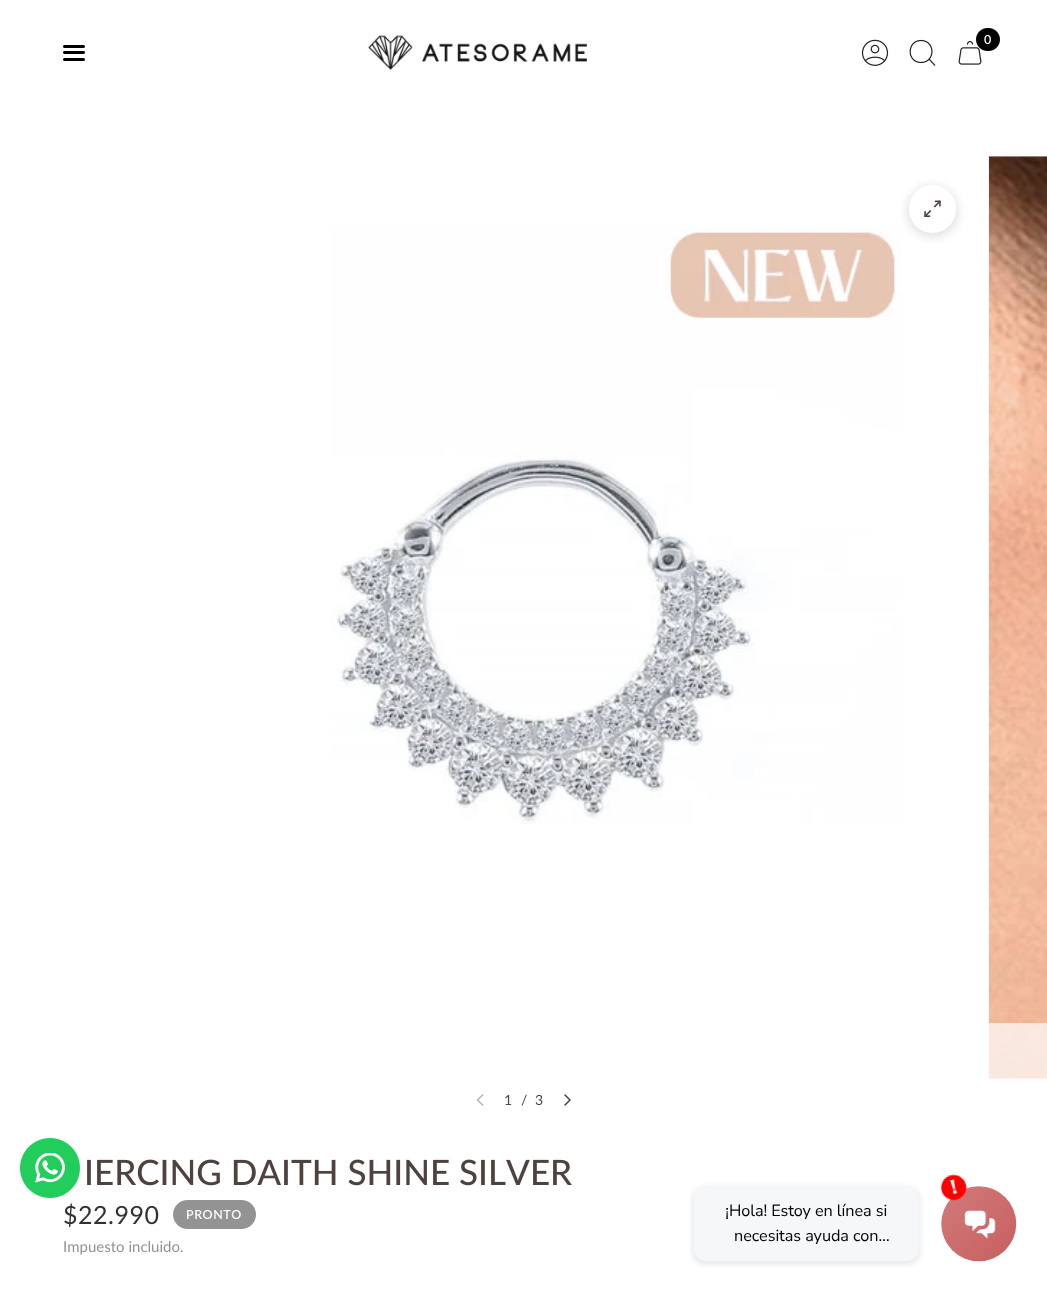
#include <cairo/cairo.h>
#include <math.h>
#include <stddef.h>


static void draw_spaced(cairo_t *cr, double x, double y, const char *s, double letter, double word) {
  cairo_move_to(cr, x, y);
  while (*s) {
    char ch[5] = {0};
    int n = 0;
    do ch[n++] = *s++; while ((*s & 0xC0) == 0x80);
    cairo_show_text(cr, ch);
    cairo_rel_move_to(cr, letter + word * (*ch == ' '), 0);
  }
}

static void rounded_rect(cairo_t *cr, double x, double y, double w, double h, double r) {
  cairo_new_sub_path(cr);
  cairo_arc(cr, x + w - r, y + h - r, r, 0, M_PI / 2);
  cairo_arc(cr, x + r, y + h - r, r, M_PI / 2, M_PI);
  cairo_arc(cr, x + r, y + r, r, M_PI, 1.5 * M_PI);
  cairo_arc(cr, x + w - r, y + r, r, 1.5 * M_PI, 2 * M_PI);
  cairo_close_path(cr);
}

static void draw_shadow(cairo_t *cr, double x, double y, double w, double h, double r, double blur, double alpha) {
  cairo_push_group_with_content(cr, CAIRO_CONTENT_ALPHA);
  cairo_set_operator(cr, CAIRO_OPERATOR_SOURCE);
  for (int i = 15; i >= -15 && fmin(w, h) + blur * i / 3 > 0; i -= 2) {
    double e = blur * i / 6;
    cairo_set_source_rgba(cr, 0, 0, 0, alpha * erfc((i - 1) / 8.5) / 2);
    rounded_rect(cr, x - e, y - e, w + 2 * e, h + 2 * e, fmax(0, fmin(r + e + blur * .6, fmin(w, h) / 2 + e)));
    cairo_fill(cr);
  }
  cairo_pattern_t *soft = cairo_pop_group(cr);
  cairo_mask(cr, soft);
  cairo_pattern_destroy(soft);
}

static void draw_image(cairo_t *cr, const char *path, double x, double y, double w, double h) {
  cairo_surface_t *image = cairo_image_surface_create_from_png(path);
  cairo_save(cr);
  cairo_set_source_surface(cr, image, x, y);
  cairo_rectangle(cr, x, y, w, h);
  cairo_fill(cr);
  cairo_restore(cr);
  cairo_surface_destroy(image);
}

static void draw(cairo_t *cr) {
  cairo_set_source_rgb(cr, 1, 1, 1);
  cairo_paint(cr);
  cairo_set_source_rgb(cr, 34 / 255.0, 205 / 255.0, 91 / 255.0);
  cairo_arc(cr, 50, 1168, 30, 0, 2 * M_PI);
  cairo_fill(cr);
  draw_image(cr, "images/1.png", 35, 1153, 30, 30);
  cairo_set_source_rgb(cr, 0, 0, 0);
  rounded_rect(cr, 63, 45, 22, 3, 1.5);
  cairo_fill(cr);
  rounded_rect(cr, 63, 51, 22, 3, 1.5);
  cairo_fill(cr);
  rounded_rect(cr, 63, 58, 22, 3, 1.5);
  cairo_fill(cr);
  draw_image(cr, "images/2.png", 368, 35, 219, 35);
  draw_image(cr, "images/3.png", 861, 39, 28, 27);
  cairo_new_path(cr);
  cairo_move_to(cr, 929, 59);
  cairo_line_to(cr, 935, 65.5);
  cairo_move_to(cr, 921, 40.5);
  cairo_curve_to(cr, 935.5, 40.5, 935.5, 62, 921.5, 62.5);
  cairo_curve_to(cr, 906.5, 63, 906.5, 40.5, 921, 40.5);
  cairo_close_path(cr);
  cairo_set_source_rgb(cr, 33 / 255.0, 33 / 255.0, 33 / 255.0);
  cairo_set_line_width(cr, 1.2);
  cairo_stroke(cr);
  draw_image(cr, "images/4.png", 958, 41, 24, 24);
  cairo_set_source_rgb(cr, 0, 0, 0);
  rounded_rect(cr, 976, 28, 24, 23, 11.5);
  cairo_fill(cr);
  draw_image(cr, "images/6.png", 331, 226, 571, 598);
  cairo_set_source_rgb(cr, 0, 0, 0);
  draw_shadow(cr, 909, 188, 47, 47, 23.5, 6, 0.15);
  cairo_set_source_rgb(cr, 1, 1, 1);
  rounded_rect(cr, 909, 185, 47, 48, 23.5);
  cairo_fill(cr);
  draw_image(cr, "images/5.png", 924, 200, 17, 17);
  draw_image(cr, "images/7.png", 988, 156, 59, 923);
  cairo_set_source_rgba(cr, 1, 1, 1, 0.7);
  cairo_rectangle(cr, 989, 1023, 58, 56);
  cairo_fill(cr);
  cairo_new_path(cr);
  cairo_move_to(cr, 482.5, 1095);
  cairo_line_to(cr, 477.5, 1100);
  cairo_line_to(cr, 482.5, 1105);
  cairo_set_source_rgb(cr, 184 / 255.0, 179 / 255.0, 178 / 255.0);
  cairo_set_line_width(cr, 1.5);
  cairo_set_line_cap(cr, CAIRO_LINE_CAP_ROUND);
  cairo_set_line_join(cr, CAIRO_LINE_JOIN_ROUND);
  cairo_stroke(cr);
  cairo_new_path(cr);
  cairo_move_to(cr, 565, 1095);
  cairo_line_to(cr, 570, 1100);
  cairo_line_to(cr, 565, 1105);
  cairo_set_source_rgb(cr, 78 / 255.0, 66 / 255.0, 62 / 255.0);
  cairo_stroke(cr);
  cairo_set_source_rgb(cr, 147 / 255.0, 147 / 255.0, 147 / 255.0);
  rounded_rect(cr, 173, 1200, 83, 29, 14.5);
  cairo_fill(cr);
  draw_image(cr, "images/8.png", 690, 1174, 327, 93);
  cairo_select_font_face(cr, "Lato SemiBold", CAIRO_FONT_SLANT_NORMAL, CAIRO_FONT_WEIGHT_NORMAL);
  cairo_set_font_size(cr, 12.5);
  cairo_set_source_rgb(cr, 1, 1, 1);
  cairo_move_to(cr, 984, 44);
  cairo_show_text(cr, "0");
  cairo_select_font_face(cr, "Lato", CAIRO_FONT_SLANT_NORMAL, CAIRO_FONT_WEIGHT_NORMAL);
  cairo_set_font_size(cr, 14);
  cairo_set_source_rgb(cr, 78 / 255.0, 66 / 255.0, 62 / 255.0);
  cairo_move_to(cr, 504, 1105);
  cairo_show_text(cr, "1");
  cairo_move_to(cr, 521, 1105);
  cairo_show_text(cr, "/");
  cairo_move_to(cr, 535, 1105);
  cairo_show_text(cr, "3");
  cairo_select_font_face(cr, "Lato Medium", CAIRO_FONT_SLANT_NORMAL, CAIRO_FONT_WEIGHT_NORMAL);
  cairo_set_font_size(cr, 35);
  cairo_move_to(cr, 84, 1185);
  cairo_show_text(cr, "IERCING DAITH SHINE SILVER");
  cairo_select_font_face(cr, "Lato", CAIRO_FONT_SLANT_NORMAL, CAIRO_FONT_WEIGHT_NORMAL);
  cairo_set_font_size(cr, 25);
  cairo_set_source_rgb(cr, 53 / 255.0, 48 / 255.0, 46 / 255.0);
  draw_spaced(cr, 63, 1224, "$22.990", 0.5, 0);
  cairo_select_font_face(cr, "Lato SemiBold", CAIRO_FONT_SLANT_NORMAL, CAIRO_FONT_WEIGHT_NORMAL);
  cairo_set_font_size(cr, 12.5);
  cairo_set_source_rgb(cr, 1, 1, 1);
  draw_spaced(cr, 186, 1219, "PRONTO", 0.5, 0);
  cairo_select_font_face(cr, "Lato", CAIRO_FONT_SLANT_NORMAL, CAIRO_FONT_WEIGHT_NORMAL);
  cairo_set_font_size(cr, 15);
  cairo_set_source_rgb(cr, 149 / 255.0, 142 / 255.0, 139 / 255.0);
  cairo_move_to(cr, 63, 1252);
  cairo_show_text(cr, "Impuesto incluido.");
}

int main(void) {
  cairo_surface_t *surface = cairo_image_surface_create(CAIRO_FORMAT_RGB24, 1047, 1292);
  cairo_t *cr = cairo_create(surface);
  cairo_font_options_t *options = cairo_font_options_create();
  cairo_font_options_set_hint_metrics(options, CAIRO_HINT_METRICS_OFF);
  cairo_font_options_set_hint_style(options, CAIRO_HINT_STYLE_NONE);
  cairo_set_font_options(cr, options);
  cairo_set_miter_limit(cr, 4);
  draw(cr);
  cairo_surface_write_to_png(surface, "out.png");
  cairo_font_options_destroy(options);
  cairo_destroy(cr);
  cairo_surface_destroy(surface);
  return 0;
}
